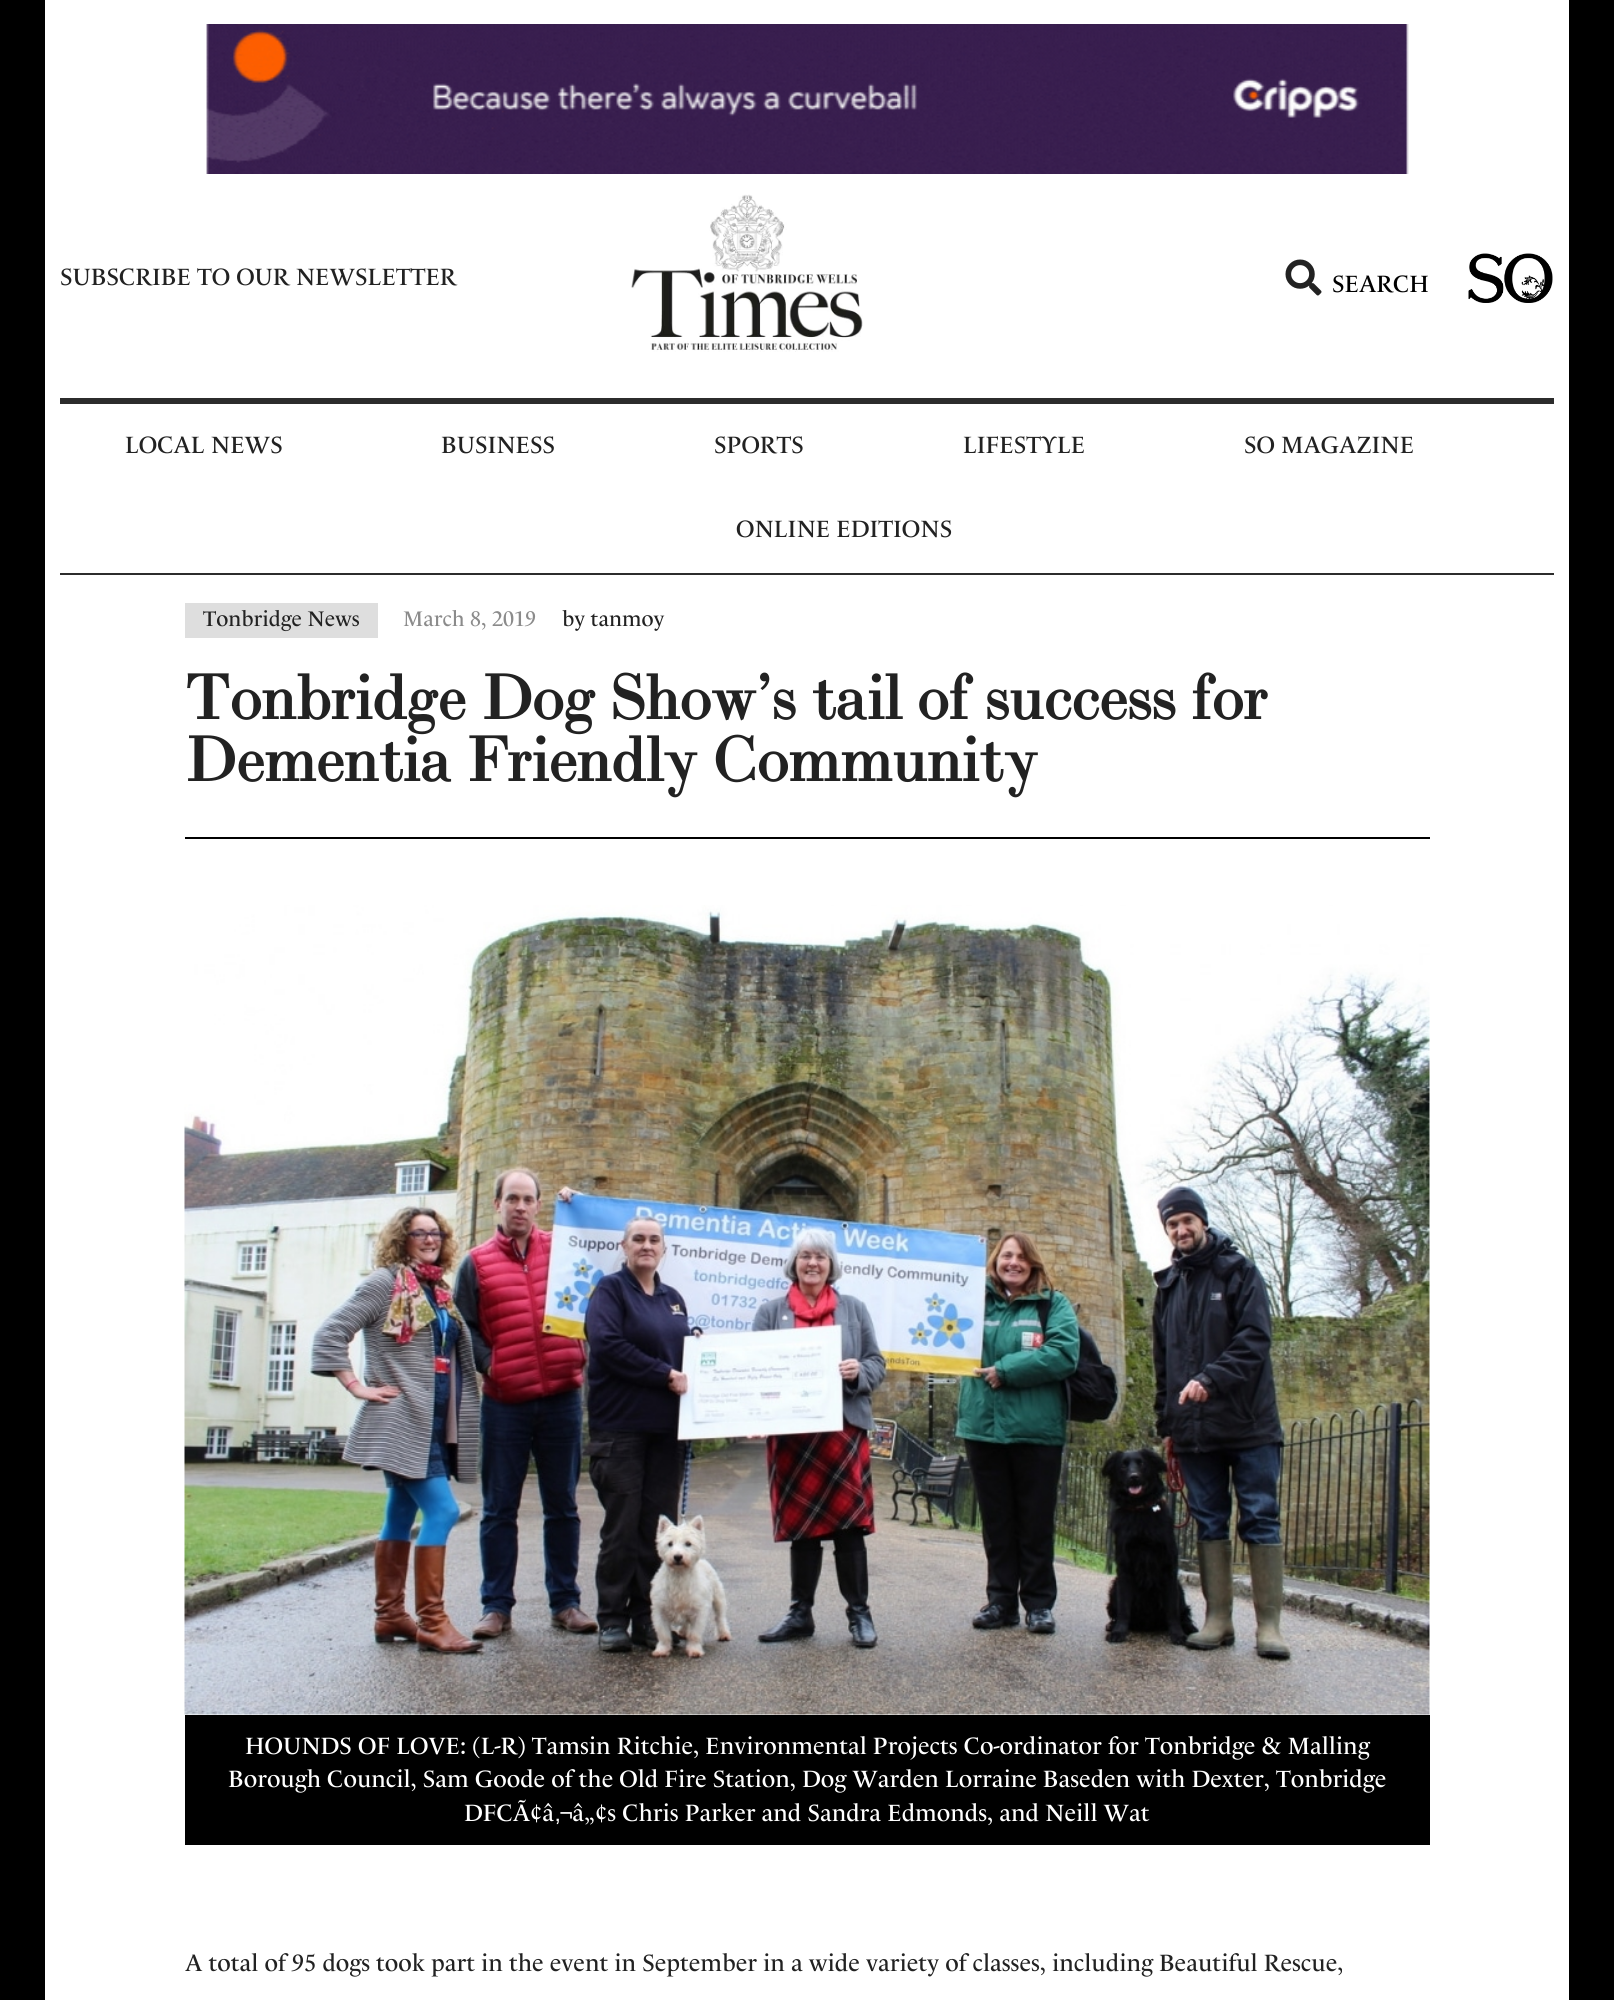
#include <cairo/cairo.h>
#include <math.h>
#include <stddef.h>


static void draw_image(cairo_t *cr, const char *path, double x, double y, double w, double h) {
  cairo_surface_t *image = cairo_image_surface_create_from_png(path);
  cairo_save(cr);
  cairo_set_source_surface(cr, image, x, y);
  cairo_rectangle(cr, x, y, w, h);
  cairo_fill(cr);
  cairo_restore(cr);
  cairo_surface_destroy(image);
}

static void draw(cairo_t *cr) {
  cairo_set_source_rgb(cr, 1, 1, 1);
  cairo_paint(cr);
  cairo_set_source_rgb(cr, 0, 0, 0);
  cairo_rectangle(cr, 1569, 0, 45, 2000);
  cairo_fill(cr);
  cairo_rectangle(cr, 0, 0, 45, 2000);
  cairo_fill(cr);
  draw_image(cr, "images/1.png", 206, 24, 1203, 150);
  draw_image(cr, "images/2.png", 631, 194, 232, 158);
  draw_image(cr, "images/3.png", 1285, 259, 37, 37);
  draw_image(cr, "images/4.png", 1468, 253, 85, 50);
  cairo_set_source_rgb(cr, 44 / 255.0, 44 / 255.0, 44 / 255.0);
  cairo_rectangle(cr, 60, 398, 1494, 6);
  cairo_fill(cr);
  cairo_rectangle(cr, 60, 573, 1494, 2);
  cairo_fill(cr);
  cairo_set_source_rgb(cr, 222 / 255.0, 222 / 255.0, 222 / 255.0);
  cairo_rectangle(cr, 185, 603, 193, 35);
  cairo_fill(cr);
  cairo_set_source_rgb(cr, 0, 0, 0);
  cairo_rectangle(cr, 185, 837, 1245, 2);
  cairo_fill(cr);
  draw_image(cr, "images/5.png", 184, 905, 1246, 810);
  cairo_rectangle(cr, 185, 1715, 1245, 130);
  cairo_fill(cr);
  cairo_select_font_face(cr, "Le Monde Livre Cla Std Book", CAIRO_FONT_SLANT_NORMAL, CAIRO_FONT_WEIGHT_NORMAL);
  cairo_set_font_size(cr, 24);
  cairo_set_source_rgb(cr, 34 / 255.0, 34 / 255.0, 34 / 255.0);
  cairo_move_to(cr, 60, 285);
  cairo_show_text(cr, "SUBSCRIBE TO OUR NEWSLETTER");
  cairo_set_source_rgb(cr, 0, 0, 0);
  cairo_move_to(cr, 1332, 292);
  cairo_show_text(cr, "SEARCH");
  cairo_set_source_rgb(cr, 34 / 255.0, 34 / 255.0, 34 / 255.0);
  cairo_move_to(cr, 125, 453);
  cairo_show_text(cr, "LOCAL NEWS");
  cairo_move_to(cr, 441, 453);
  cairo_show_text(cr, "BUSINESS");
  cairo_move_to(cr, 714, 453);
  cairo_show_text(cr, "SPORTS");
  cairo_move_to(cr, 963, 453);
  cairo_show_text(cr, "LIFESTYLE");
  cairo_move_to(cr, 1244, 453);
  cairo_show_text(cr, "SO MAGAZINE");
  cairo_move_to(cr, 736, 537);
  cairo_show_text(cr, "ONLINE EDITIONS");
  cairo_set_font_size(cr, 21.5);
  cairo_move_to(cr, 203, 626);
  cairo_show_text(cr, "Tonbridge News");
  cairo_set_source_rgb(cr, 139 / 255.0, 139 / 255.0, 139 / 255.0);
  cairo_move_to(cr, 403, 626);
  cairo_show_text(cr, "March 8, 2019");
  cairo_set_source_rgb(cr, 34 / 255.0, 34 / 255.0, 34 / 255.0);
  cairo_move_to(cr, 562, 626);
  cairo_show_text(cr, "by tanmoy");
  cairo_select_font_face(cr, "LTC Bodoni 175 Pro", CAIRO_FONT_SLANT_NORMAL, CAIRO_FONT_WEIGHT_BOLD);
  cairo_set_font_size(cr, 62.4);
  cairo_move_to(cr, 185, 719);
  cairo_show_text(cr, "Tonbridge Dog Show’s tail of success for");
  cairo_move_to(cr, 185, 781);
  cairo_show_text(cr, "Dementia Friendly Community");
  cairo_select_font_face(cr, "Le Monde Livre Cla Std Book", CAIRO_FONT_SLANT_NORMAL, CAIRO_FONT_WEIGHT_NORMAL);
  cairo_set_font_size(cr, 24);
  cairo_set_source_rgb(cr, 1, 1, 1);
  cairo_move_to(cr, 245, 1754);
  cairo_show_text(cr, "HOUNDS OF LOVE: (L-R) Tamsin Ritchie, Environmental Projects Co-ordinator for Tonbridge & Malling");
  cairo_move_to(cr, 228, 1787);
  cairo_show_text(cr, "Borough Council, Sam Goode of the Old Fire Station, Dog Warden Lorraine Baseden with Dexter, Tonbridge");
  cairo_move_to(cr, 464, 1821);
  cairo_show_text(cr, "DFCÃ¢â");
  cairo_select_font_face(cr, "Liberation Sans", CAIRO_FONT_SLANT_NORMAL, CAIRO_FONT_WEIGHT_NORMAL);
  cairo_move_to(cr, 555, 1821);
  cairo_show_text(cr, "‚");
  cairo_select_font_face(cr, "Le Monde Livre Cla Std Book", CAIRO_FONT_SLANT_NORMAL, CAIRO_FONT_WEIGHT_NORMAL);
  cairo_move_to(cr, 560, 1821);
  cairo_show_text(cr, "¬â„¢s Chris Parker and Sandra Edmonds, and Neill Wat");
  cairo_set_source_rgb(cr, 34 / 255.0, 34 / 255.0, 34 / 255.0);
  cairo_move_to(cr, 185, 1971);
  cairo_show_text(cr, "A total of 95 dogs took part in the event in September in a wide variety of classes, including Beautiful Rescue,");
}

int main(void) {
  cairo_surface_t *surface = cairo_image_surface_create(CAIRO_FORMAT_RGB24, 1614, 2000);
  cairo_t *cr = cairo_create(surface);
  cairo_font_options_t *options = cairo_font_options_create();
  cairo_font_options_set_hint_metrics(options, CAIRO_HINT_METRICS_OFF);
  cairo_font_options_set_hint_style(options, CAIRO_HINT_STYLE_NONE);
  cairo_set_font_options(cr, options);
  cairo_set_miter_limit(cr, 4);
  draw(cr);
  cairo_surface_write_to_png(surface, "out.png");
  cairo_font_options_destroy(options);
  cairo_destroy(cr);
  cairo_surface_destroy(surface);
  return 0;
}
